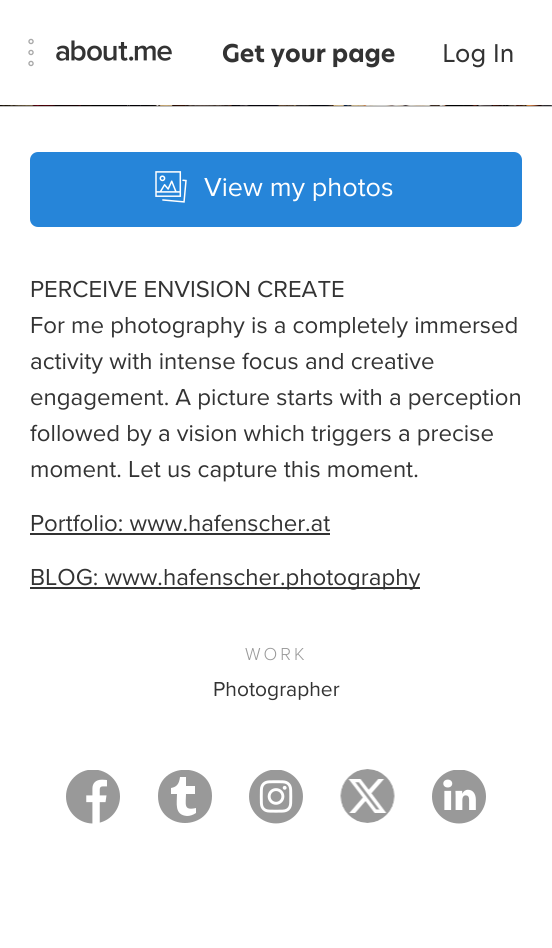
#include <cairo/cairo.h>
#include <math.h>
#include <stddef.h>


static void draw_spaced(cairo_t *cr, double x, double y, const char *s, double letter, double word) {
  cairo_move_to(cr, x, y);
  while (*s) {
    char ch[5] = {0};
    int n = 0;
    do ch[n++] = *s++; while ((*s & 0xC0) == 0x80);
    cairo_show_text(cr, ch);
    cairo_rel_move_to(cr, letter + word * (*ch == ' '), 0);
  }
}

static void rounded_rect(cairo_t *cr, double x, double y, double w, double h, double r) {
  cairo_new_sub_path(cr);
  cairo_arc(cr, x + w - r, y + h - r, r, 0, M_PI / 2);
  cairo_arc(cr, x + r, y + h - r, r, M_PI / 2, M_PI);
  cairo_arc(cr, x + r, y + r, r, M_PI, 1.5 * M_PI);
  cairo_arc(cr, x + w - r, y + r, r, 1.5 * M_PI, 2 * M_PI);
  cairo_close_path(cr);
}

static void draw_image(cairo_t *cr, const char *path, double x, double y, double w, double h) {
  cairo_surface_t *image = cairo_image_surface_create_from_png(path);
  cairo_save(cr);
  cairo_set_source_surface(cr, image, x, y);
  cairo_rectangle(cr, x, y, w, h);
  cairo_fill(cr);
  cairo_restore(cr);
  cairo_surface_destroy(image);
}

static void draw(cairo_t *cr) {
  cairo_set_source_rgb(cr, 1, 1, 1);
  cairo_paint(cr);
  cairo_set_source_rgb(cr, 238 / 255.0, 238 / 255.0, 238 / 255.0);
  cairo_rectangle(cr, 0, 106, 552, 1);
  cairo_fill(cr);
  draw_image(cr, "images/3.png", 0, 105, 552, 1);
  cairo_set_source_rgba(cr, 0, 0, 0, 0.2);
  cairo_rectangle(cr, 0, 105, 552, 2);
  cairo_fill(cr);
  draw_image(cr, "images/1.png", 28, 38, 6, 29);
  draw_image(cr, "images/2.png", 56, 40, 116, 21);
  cairo_set_source_rgb(cr, 38 / 255.0, 133 / 255.0, 217 / 255.0);
  rounded_rect(cr, 31, 153, 490, 73, 7);
  cairo_fill_preserve(cr);
  cairo_stroke(cr);
  draw_image(cr, "images/4.png", 155, 171, 32, 32);
  cairo_set_source_rgb(cr, 51 / 255.0, 51 / 255.0, 51 / 255.0);
  cairo_rectangle(cr, 30, 533, 300, 2);
  cairo_fill(cr);
  cairo_rectangle(cr, 30, 587, 390, 2);
  cairo_fill(cr);
  draw_image(cr, "images/5.png", 66, 770, 54, 54);
  cairo_save(cr);
  cairo_rectangle(cr, 158, 770, 54, 54);
  cairo_clip(cr);
  cairo_set_source_rgb(cr, 153 / 255.0, 153 / 255.0, 153 / 255.0);
  cairo_new_path(cr);
  cairo_move_to(cr, 212, 796);
  cairo_curve_to(cr, 212, 832, 158, 832, 158, 796);
  cairo_curve_to(cr, 158, 761, 212, 761, 212, 796);
  cairo_close_path(cr);
  cairo_move_to(cr, 196, 808);
  cairo_curve_to(cr, 183, 811, 186, 804, 186, 794);
  cairo_line_to(cr, 195, 794);
  cairo_line_to(cr, 195, 786);
  cairo_line_to(cr, 186, 786);
  cairo_line_to(cr, 186, 777);
  cairo_line_to(cr, 180, 777);
  cairo_curve_to(cr, 179, 785, 176, 787, 171, 788);
  cairo_line_to(cr, 171, 794);
  cairo_line_to(cr, 177, 794);
  cairo_curve_to(cr, 177, 803, 174, 815, 187, 816);
  cairo_curve_to(cr, 190, 816, 193, 815, 196, 813);
  cairo_close_path(cr);
  cairo_fill(cr);
  cairo_restore(cr);
  draw_image(cr, "images/6.png", 249, 770, 54, 54);
  draw_image(cr, "images/7.png", 340, 769, 55, 54);
  draw_image(cr, "images/8.png", 432, 770, 54, 54);
  cairo_select_font_face(cr, "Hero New", CAIRO_FONT_SLANT_NORMAL, CAIRO_FONT_WEIGHT_BOLD);
  cairo_set_font_size(cr, 24);
  cairo_move_to(cr, 222, 62);
  cairo_show_text(cr, "Get your page");
  cairo_select_font_face(cr, "Hero New", CAIRO_FONT_SLANT_NORMAL, CAIRO_FONT_WEIGHT_NORMAL);
  cairo_move_to(cr, 442, 62);
  cairo_show_text(cr, "Log In");
  cairo_select_font_face(cr, "Proxima Nova", CAIRO_FONT_SLANT_NORMAL, CAIRO_FONT_WEIGHT_NORMAL);
  cairo_set_font_size(cr, 27);
  cairo_set_source_rgb(cr, 1, 1, 1);
  cairo_move_to(cr, 204, 196);
  cairo_show_text(cr, "View my photos");
  cairo_set_font_size(cr, 24);
  cairo_set_source_rgb(cr, 51 / 255.0, 51 / 255.0, 51 / 255.0);
  cairo_move_to(cr, 30, 297);
  cairo_show_text(cr, "PERCEIVE ENVISION CREATE");
  cairo_move_to(cr, 30, 333);
  cairo_show_text(cr, "For me photography is a completely immersed");
  cairo_move_to(cr, 30, 369);
  cairo_show_text(cr, "activity with intense focus and creative");
  cairo_move_to(cr, 30, 405);
  cairo_show_text(cr, "engagement. A picture starts with a perception");
  cairo_move_to(cr, 30, 441);
  cairo_show_text(cr, "followed by a vision which triggers a precise");
  cairo_move_to(cr, 30, 477);
  cairo_show_text(cr, "moment. Let us capture this moment.");
  cairo_move_to(cr, 30, 531);
  cairo_show_text(cr, "Portfolio: www.hafenscher.at");
  cairo_move_to(cr, 30, 585);
  cairo_show_text(cr, "BLOG: www.hafenscher.photography");
  cairo_select_font_face(cr, "Proxima Nova Light", CAIRO_FONT_SLANT_NORMAL, CAIRO_FONT_WEIGHT_NORMAL);
  cairo_set_font_size(cr, 18);
  cairo_set_source_rgb(cr, 153 / 255.0, 153 / 255.0, 153 / 255.0);
  draw_spaced(cr, 245, 660, "WORK", 3, 0);
  cairo_select_font_face(cr, "Proxima Nova", CAIRO_FONT_SLANT_NORMAL, CAIRO_FONT_WEIGHT_NORMAL);
  cairo_set_font_size(cr, 21);
  cairo_set_source_rgb(cr, 51 / 255.0, 51 / 255.0, 51 / 255.0);
  cairo_move_to(cr, 213, 696);
  cairo_show_text(cr, "Photographer");
}

int main(void) {
  cairo_surface_t *surface = cairo_image_surface_create(CAIRO_FORMAT_RGB24, 552, 948);
  cairo_t *cr = cairo_create(surface);
  cairo_font_options_t *options = cairo_font_options_create();
  cairo_font_options_set_hint_metrics(options, CAIRO_HINT_METRICS_OFF);
  cairo_font_options_set_hint_style(options, CAIRO_HINT_STYLE_NONE);
  cairo_set_font_options(cr, options);
  cairo_set_miter_limit(cr, 4);
  draw(cr);
  cairo_surface_write_to_png(surface, "out.png");
  cairo_font_options_destroy(options);
  cairo_destroy(cr);
  cairo_surface_destroy(surface);
  return 0;
}
